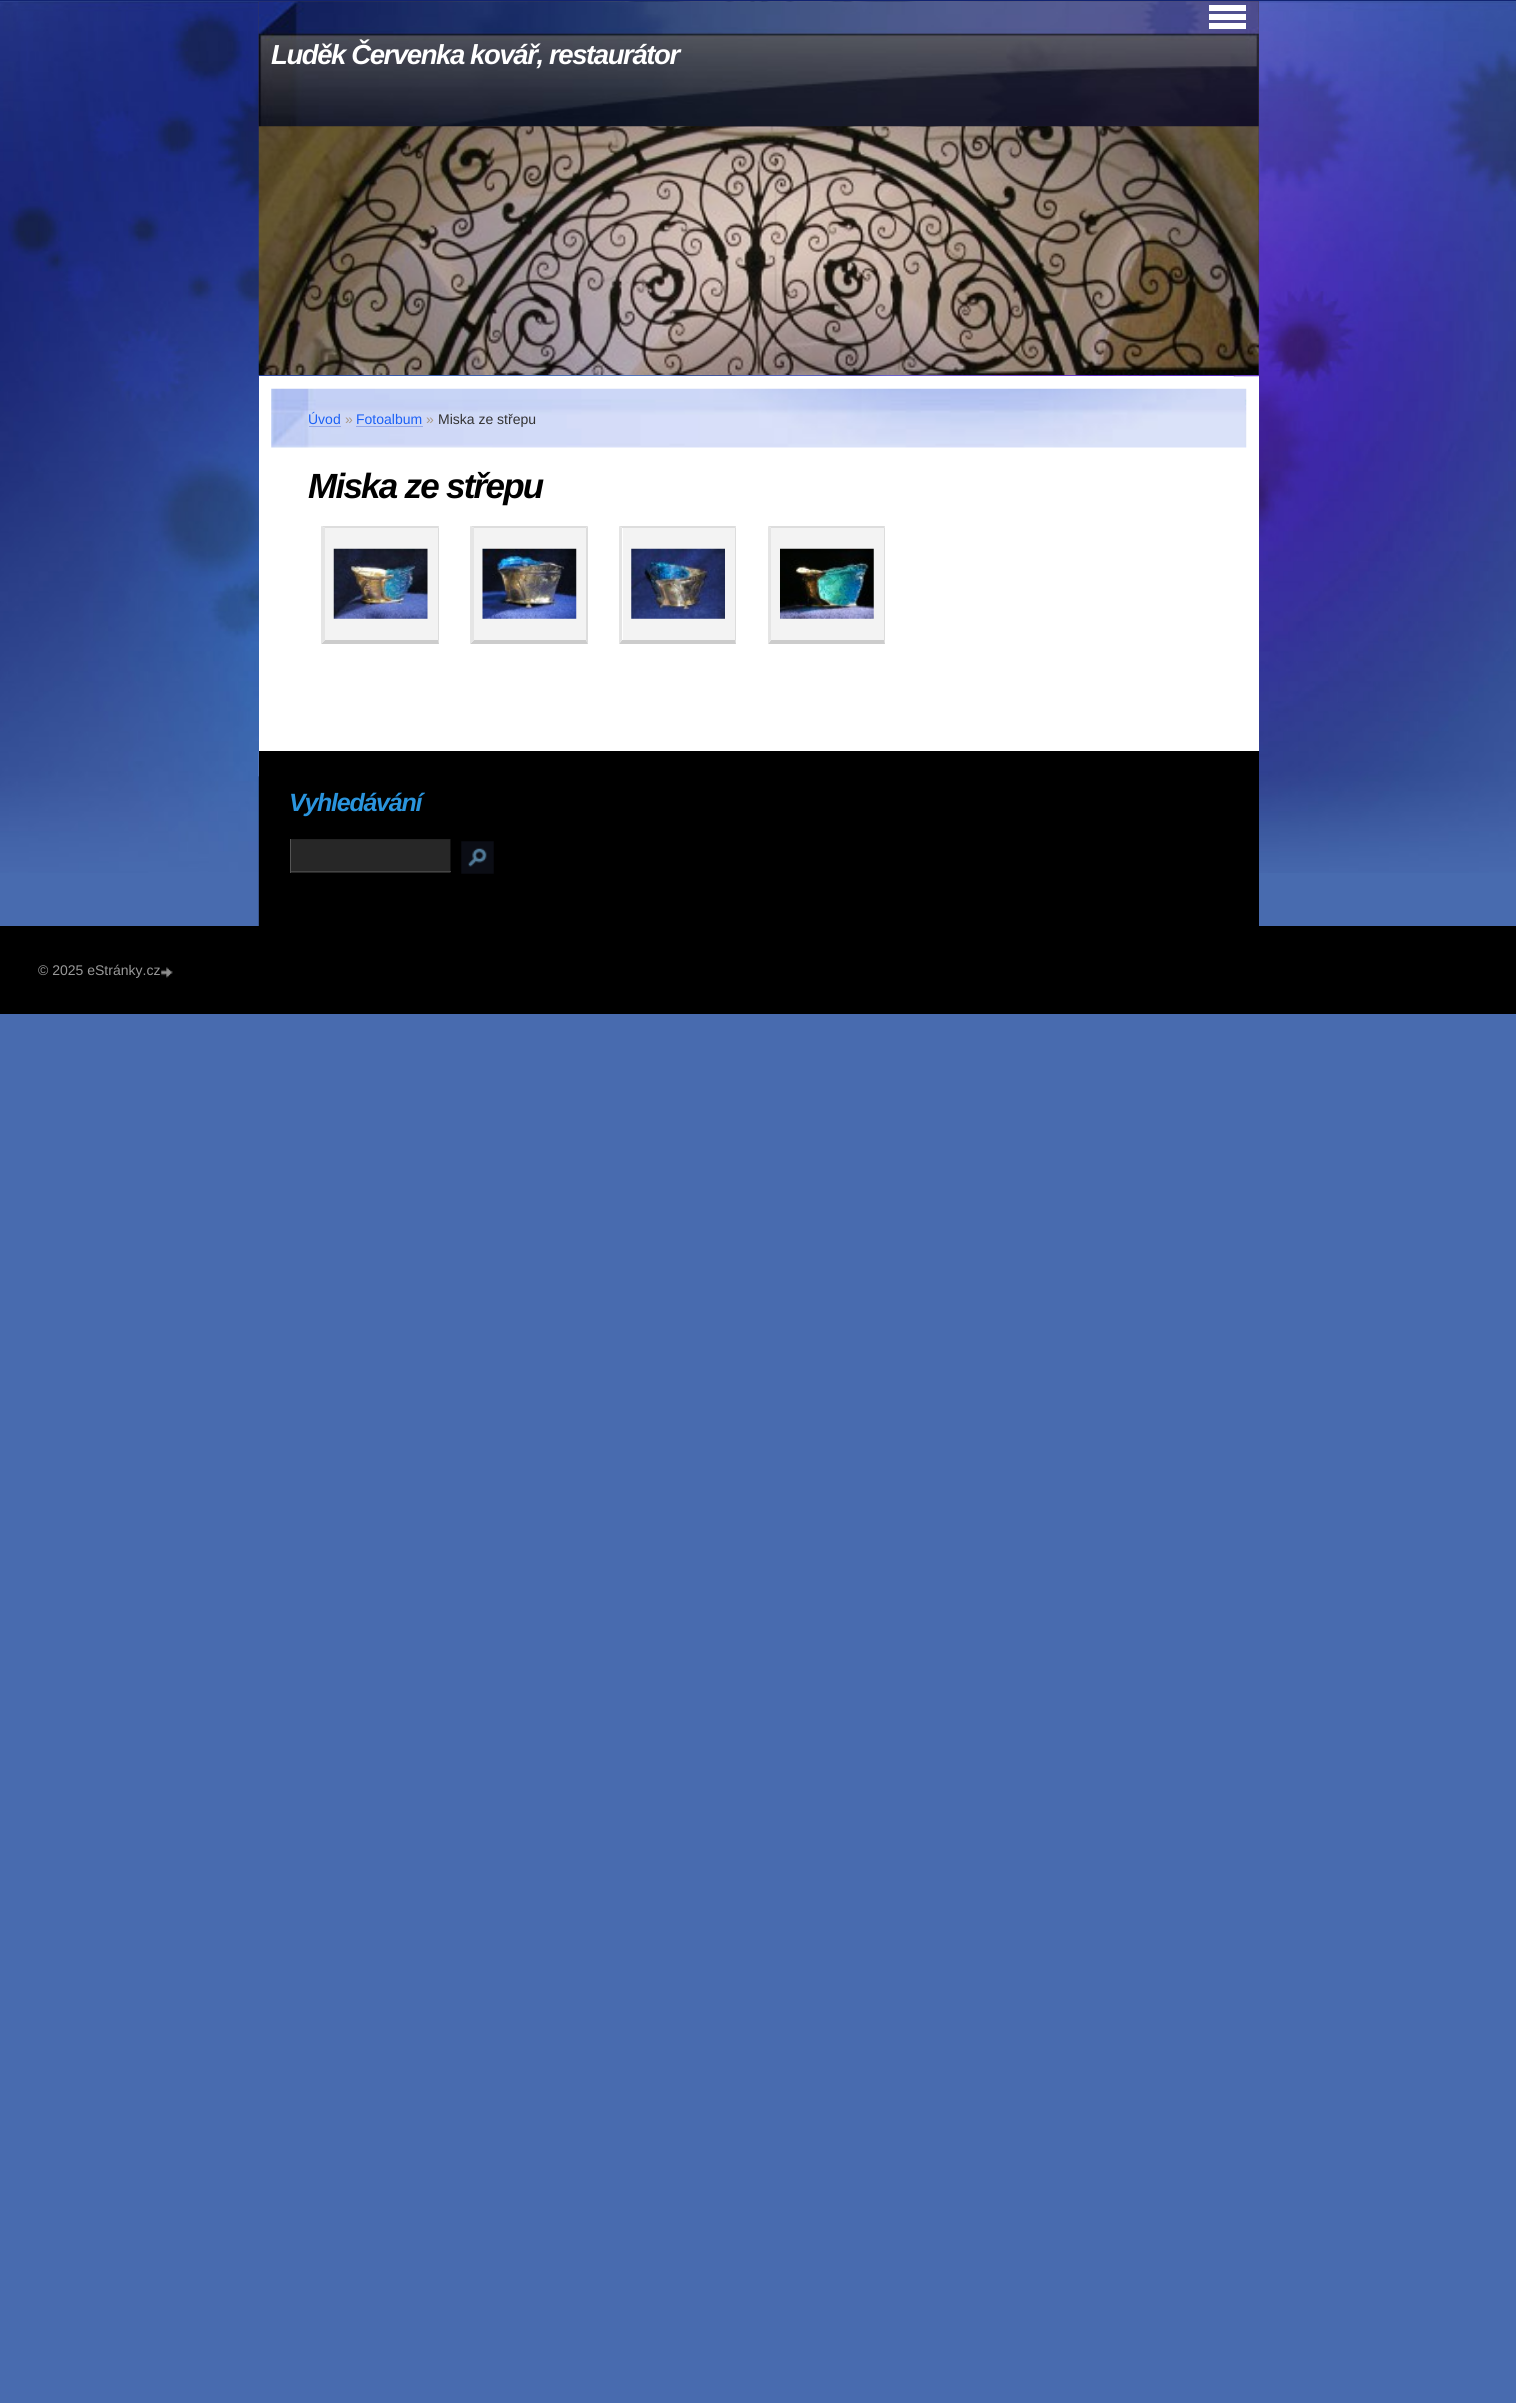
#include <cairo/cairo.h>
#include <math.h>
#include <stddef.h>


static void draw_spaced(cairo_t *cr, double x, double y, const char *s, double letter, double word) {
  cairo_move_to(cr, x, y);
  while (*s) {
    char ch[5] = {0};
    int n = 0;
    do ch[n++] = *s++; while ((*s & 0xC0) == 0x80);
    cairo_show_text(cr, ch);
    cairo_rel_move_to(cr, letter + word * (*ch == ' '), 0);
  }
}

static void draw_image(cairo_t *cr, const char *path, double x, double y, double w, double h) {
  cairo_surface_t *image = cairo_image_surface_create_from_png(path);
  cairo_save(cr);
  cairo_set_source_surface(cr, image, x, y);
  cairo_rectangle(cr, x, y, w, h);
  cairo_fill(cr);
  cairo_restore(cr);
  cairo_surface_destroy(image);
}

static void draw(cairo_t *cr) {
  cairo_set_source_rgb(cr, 72 / 255.0, 107 / 255.0, 175 / 255.0);
  cairo_paint(cr);
  draw_image(cr, "images/1.png", 0, 1, 1516, 872);
  cairo_set_source_rgb(cr, 17 / 255.0, 35 / 255.0, 114 / 255.0);
  cairo_rectangle(cr, 0, 0, 1516, 1);
  cairo_fill(cr);
  cairo_set_source_rgb(cr, 1, 1, 1);
  cairo_rectangle(cr, 259, 376, 1000, 375);
  cairo_fill(cr);
  draw_image(cr, "images/2.png", 1233, 1, 26, 376);
  draw_image(cr, "images/3.png", 258, 1, 1001, 374);
  draw_image(cr, "images/4.png", 258, 1, 1001, 126);
  cairo_rectangle(cr, 1209, 5, 37, 6);
  cairo_fill(cr);
  cairo_rectangle(cr, 1209, 14, 37, 6);
  cairo_fill(cr);
  cairo_rectangle(cr, 1209, 23, 37, 6);
  cairo_fill(cr);
  draw_image(cr, "images/5.png", 271, 388, 976, 60);
  cairo_set_source_rgb(cr, 149 / 255.0, 169 / 255.0, 231 / 255.0);
  cairo_rectangle(cr, 309, 426, 32, 1);
  cairo_fill(cr);
  cairo_rectangle(cr, 356, 426, 67, 1);
  cairo_fill(cr);
  cairo_set_source_rgb(cr, 243 / 255.0, 243 / 255.0, 243 / 255.0);
  cairo_rectangle(cr, 325, 528, 113, 112);
  cairo_fill(cr);
  cairo_set_source_rgb(cr, 221 / 255.0, 221 / 255.0, 221 / 255.0);
  cairo_new_path(cr);
  cairo_move_to(cr, 321, 526);
  cairo_line_to(cr, 439, 526);
  cairo_line_to(cr, 438, 528);
  cairo_line_to(cr, 325, 528);
  cairo_close_path(cr);
  cairo_fill(cr);
  cairo_new_path(cr);
  cairo_move_to(cr, 439, 526);
  cairo_line_to(cr, 439, 644);
  cairo_line_to(cr, 438, 640);
  cairo_line_to(cr, 438, 528);
  cairo_close_path(cr);
  cairo_fill(cr);
  cairo_set_source_rgb(cr, 204 / 255.0, 204 / 255.0, 204 / 255.0);
  cairo_new_path(cr);
  cairo_move_to(cr, 439, 644);
  cairo_line_to(cr, 321, 644);
  cairo_line_to(cr, 325, 640);
  cairo_line_to(cr, 438, 640);
  cairo_close_path(cr);
  cairo_fill(cr);
  cairo_set_source_rgb(cr, 229 / 255.0, 229 / 255.0, 229 / 255.0);
  cairo_new_path(cr);
  cairo_move_to(cr, 321, 644);
  cairo_line_to(cr, 321, 526);
  cairo_line_to(cr, 325, 528);
  cairo_line_to(cr, 325, 640);
  cairo_close_path(cr);
  cairo_fill(cr);
  draw_image(cr, "images/6.png", 333, 548, 95, 71);
  cairo_set_source_rgb(cr, 243 / 255.0, 243 / 255.0, 243 / 255.0);
  cairo_rectangle(cr, 474, 528, 112, 112);
  cairo_fill(cr);
  cairo_set_source_rgb(cr, 221 / 255.0, 221 / 255.0, 221 / 255.0);
  cairo_new_path(cr);
  cairo_move_to(cr, 470, 526);
  cairo_line_to(cr, 588, 526);
  cairo_line_to(cr, 586, 528);
  cairo_line_to(cr, 474, 528);
  cairo_close_path(cr);
  cairo_fill(cr);
  cairo_new_path(cr);
  cairo_move_to(cr, 588, 526);
  cairo_line_to(cr, 588, 644);
  cairo_line_to(cr, 586, 640);
  cairo_line_to(cr, 586, 528);
  cairo_close_path(cr);
  cairo_fill(cr);
  cairo_set_source_rgb(cr, 204 / 255.0, 204 / 255.0, 204 / 255.0);
  cairo_new_path(cr);
  cairo_move_to(cr, 588, 644);
  cairo_line_to(cr, 470, 644);
  cairo_line_to(cr, 474, 640);
  cairo_line_to(cr, 586, 640);
  cairo_close_path(cr);
  cairo_fill(cr);
  cairo_set_source_rgb(cr, 229 / 255.0, 229 / 255.0, 229 / 255.0);
  cairo_new_path(cr);
  cairo_move_to(cr, 470, 644);
  cairo_line_to(cr, 470, 526);
  cairo_line_to(cr, 474, 528);
  cairo_line_to(cr, 474, 640);
  cairo_close_path(cr);
  cairo_fill(cr);
  draw_image(cr, "images/7.png", 482, 548, 95, 71);
  cairo_set_source_rgb(cr, 243 / 255.0, 243 / 255.0, 243 / 255.0);
  cairo_rectangle(cr, 623, 528, 112, 112);
  cairo_fill(cr);
  cairo_set_source_rgb(cr, 221 / 255.0, 221 / 255.0, 221 / 255.0);
  cairo_new_path(cr);
  cairo_move_to(cr, 619, 526);
  cairo_line_to(cr, 736, 526);
  cairo_line_to(cr, 735, 528);
  cairo_line_to(cr, 622, 528);
  cairo_close_path(cr);
  cairo_fill(cr);
  cairo_new_path(cr);
  cairo_move_to(cr, 736, 526);
  cairo_line_to(cr, 736, 644);
  cairo_line_to(cr, 735, 640);
  cairo_line_to(cr, 735, 528);
  cairo_close_path(cr);
  cairo_fill(cr);
  cairo_set_source_rgb(cr, 204 / 255.0, 204 / 255.0, 204 / 255.0);
  cairo_new_path(cr);
  cairo_move_to(cr, 736, 644);
  cairo_line_to(cr, 619, 644);
  cairo_line_to(cr, 622, 640);
  cairo_line_to(cr, 735, 640);
  cairo_close_path(cr);
  cairo_fill(cr);
  cairo_set_source_rgb(cr, 229 / 255.0, 229 / 255.0, 229 / 255.0);
  cairo_new_path(cr);
  cairo_move_to(cr, 619, 644);
  cairo_line_to(cr, 619, 526);
  cairo_line_to(cr, 622, 528);
  cairo_line_to(cr, 622, 640);
  cairo_close_path(cr);
  cairo_fill(cr);
  draw_image(cr, "images/8.png", 631, 548, 94, 71);
  cairo_set_source_rgb(cr, 243 / 255.0, 243 / 255.0, 243 / 255.0);
  cairo_rectangle(cr, 771, 528, 113, 112);
  cairo_fill(cr);
  cairo_set_source_rgb(cr, 221 / 255.0, 221 / 255.0, 221 / 255.0);
  cairo_new_path(cr);
  cairo_move_to(cr, 768, 526);
  cairo_line_to(cr, 885, 526);
  cairo_line_to(cr, 884, 528);
  cairo_line_to(cr, 771, 528);
  cairo_close_path(cr);
  cairo_fill(cr);
  cairo_new_path(cr);
  cairo_move_to(cr, 885, 526);
  cairo_line_to(cr, 885, 644);
  cairo_line_to(cr, 884, 640);
  cairo_line_to(cr, 884, 528);
  cairo_close_path(cr);
  cairo_fill(cr);
  cairo_set_source_rgb(cr, 204 / 255.0, 204 / 255.0, 204 / 255.0);
  cairo_new_path(cr);
  cairo_move_to(cr, 885, 644);
  cairo_line_to(cr, 768, 644);
  cairo_line_to(cr, 771, 640);
  cairo_line_to(cr, 884, 640);
  cairo_close_path(cr);
  cairo_fill(cr);
  cairo_set_source_rgb(cr, 229 / 255.0, 229 / 255.0, 229 / 255.0);
  cairo_new_path(cr);
  cairo_move_to(cr, 768, 644);
  cairo_line_to(cr, 768, 526);
  cairo_line_to(cr, 771, 528);
  cairo_line_to(cr, 771, 640);
  cairo_close_path(cr);
  cairo_fill(cr);
  draw_image(cr, "images/9.png", 780, 548, 94, 71);
  draw_image(cr, "images/10.png", 258, 751, 1, 175);
  cairo_set_source_rgb(cr, 0, 0, 0);
  cairo_rectangle(cr, 259, 751, 1000, 175);
  cairo_fill(cr);
  cairo_set_source_rgb(cr, 39 / 255.0, 39 / 255.0, 39 / 255.0);
  cairo_rectangle(cr, 291, 840, 159, 33);
  cairo_fill(cr);
  cairo_set_source_rgb(cr, 34 / 255.0, 34 / 255.0, 34 / 255.0);
  cairo_rectangle(cr, 290, 839, 161, 1);
  cairo_fill(cr);
  cairo_set_source_rgb(cr, 17 / 255.0, 17 / 255.0, 17 / 255.0);
  cairo_rectangle(cr, 450, 839, 1, 34);
  cairo_fill(cr);
  cairo_set_source_rgb(cr, 68 / 255.0, 68 / 255.0, 68 / 255.0);
  cairo_rectangle(cr, 290, 871, 161, 1);
  cairo_fill(cr);
  cairo_set_source_rgb(cr, 85 / 255.0, 85 / 255.0, 85 / 255.0);
  cairo_rectangle(cr, 290, 839, 1, 34);
  cairo_fill(cr);
  draw_image(cr, "images/11.png", 461, 841, 33, 33);
  cairo_set_source_rgb(cr, 0, 0, 0);
  cairo_rectangle(cr, 0, 926, 1516, 88);
  cairo_fill(cr);
  draw_image(cr, "images/12.png", 161, 967, 12, 11);
  cairo_select_font_face(cr, "Liberation Sans", CAIRO_FONT_SLANT_ITALIC, CAIRO_FONT_WEIGHT_BOLD);
  cairo_set_font_size(cr, 27.5);
  cairo_set_source_rgb(cr, 1, 1, 1);
  draw_spaced(cr, 271, 64, "Luděk Červenka kovář, restaurátor", -1.4, 0);
  cairo_select_font_face(cr, "Liberation Sans", CAIRO_FONT_SLANT_NORMAL, CAIRO_FONT_WEIGHT_NORMAL);
  cairo_set_font_size(cr, 14);
  cairo_set_source_rgb(cr, 27 / 255.0, 97 / 255.0, 245 / 255.0);
  cairo_move_to(cr, 308, 424);
  cairo_show_text(cr, "Úvod");
  cairo_set_source_rgb(cr, 169 / 255.0, 153 / 255.0, 133 / 255.0);
  cairo_move_to(cr, 345, 424);
  cairo_show_text(cr, "»");
  cairo_set_source_rgb(cr, 27 / 255.0, 97 / 255.0, 245 / 255.0);
  cairo_move_to(cr, 356, 424);
  cairo_show_text(cr, "Fotoalbum");
  cairo_set_source_rgb(cr, 169 / 255.0, 153 / 255.0, 133 / 255.0);
  cairo_move_to(cr, 426, 424);
  cairo_show_text(cr, "»");
  cairo_set_source_rgb(cr, 51 / 255.0, 51 / 255.0, 51 / 255.0);
  cairo_move_to(cr, 438, 424);
  cairo_show_text(cr, "Miska ze střepu");
  cairo_select_font_face(cr, "Liberation Sans", CAIRO_FONT_SLANT_ITALIC, CAIRO_FONT_WEIGHT_BOLD);
  cairo_set_font_size(cr, 35);
  cairo_set_source_rgb(cr, 0, 0, 0);
  draw_spaced(cr, 308, 498, "Miska ze střepu", -1.75, 0);
  cairo_set_font_size(cr, 25);
  cairo_set_source_rgb(cr, 42 / 255.0, 148 / 255.0, 221 / 255.0);
  draw_spaced(cr, 289, 811, "Vyhledávání", -1.25, 0);
  cairo_select_font_face(cr, "Liberation Sans", CAIRO_FONT_SLANT_NORMAL, CAIRO_FONT_WEIGHT_NORMAL);
  cairo_set_font_size(cr, 14);
  cairo_set_source_rgb(cr, 153 / 255.0, 153 / 255.0, 153 / 255.0);
  cairo_move_to(cr, 38, 975);
  cairo_show_text(cr, "© 2025 eStránky.cz");
}

int main(void) {
  cairo_surface_t *surface = cairo_image_surface_create(CAIRO_FORMAT_RGB24, 1516, 2403);
  cairo_t *cr = cairo_create(surface);
  cairo_font_options_t *options = cairo_font_options_create();
  cairo_font_options_set_hint_metrics(options, CAIRO_HINT_METRICS_OFF);
  cairo_font_options_set_hint_style(options, CAIRO_HINT_STYLE_NONE);
  cairo_set_font_options(cr, options);
  cairo_set_miter_limit(cr, 4);
  draw(cr);
  cairo_surface_write_to_png(surface, "out.png");
  cairo_font_options_destroy(options);
  cairo_destroy(cr);
  cairo_surface_destroy(surface);
  return 0;
}
